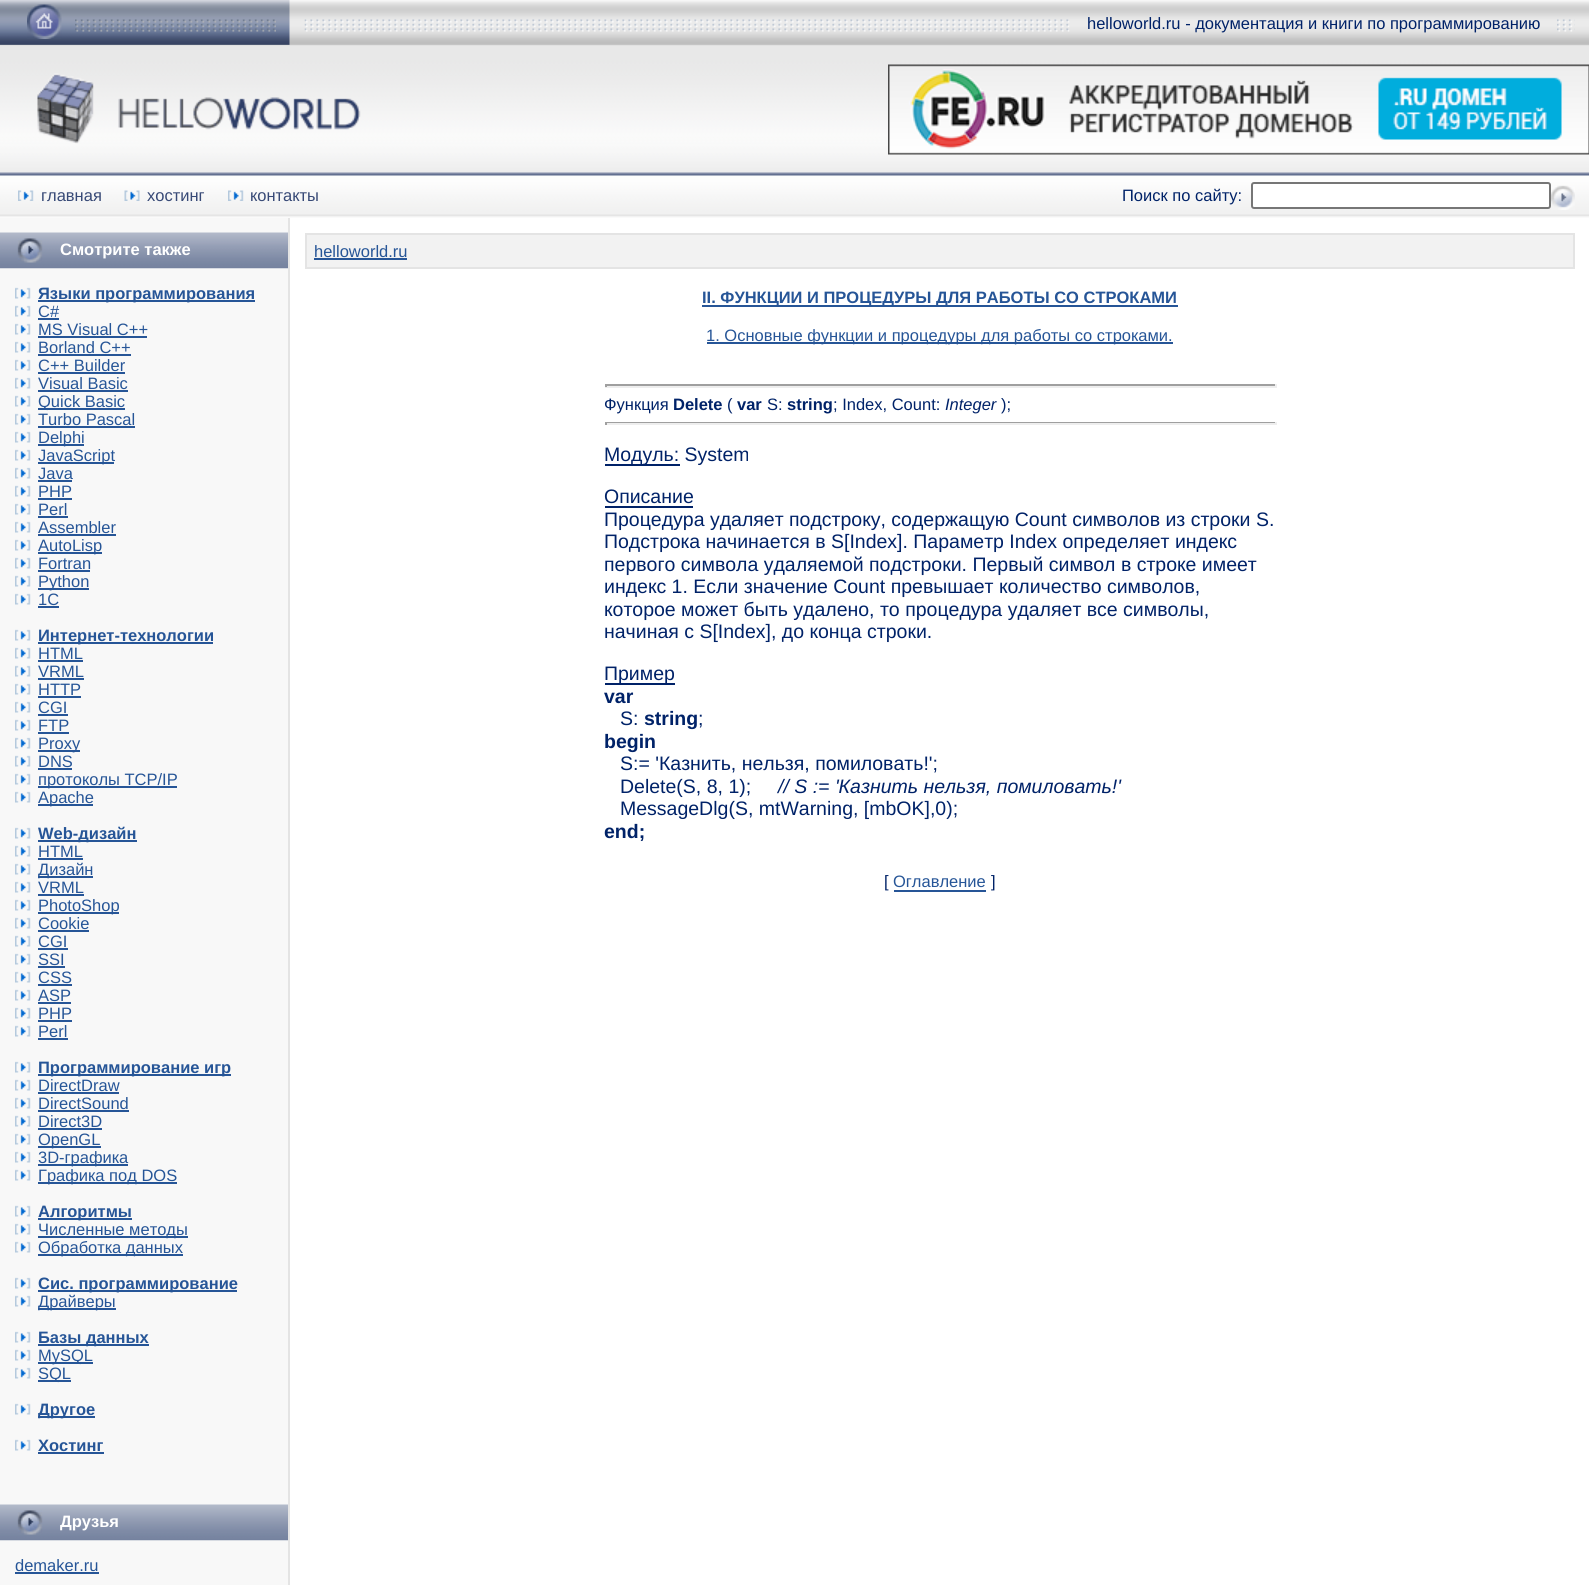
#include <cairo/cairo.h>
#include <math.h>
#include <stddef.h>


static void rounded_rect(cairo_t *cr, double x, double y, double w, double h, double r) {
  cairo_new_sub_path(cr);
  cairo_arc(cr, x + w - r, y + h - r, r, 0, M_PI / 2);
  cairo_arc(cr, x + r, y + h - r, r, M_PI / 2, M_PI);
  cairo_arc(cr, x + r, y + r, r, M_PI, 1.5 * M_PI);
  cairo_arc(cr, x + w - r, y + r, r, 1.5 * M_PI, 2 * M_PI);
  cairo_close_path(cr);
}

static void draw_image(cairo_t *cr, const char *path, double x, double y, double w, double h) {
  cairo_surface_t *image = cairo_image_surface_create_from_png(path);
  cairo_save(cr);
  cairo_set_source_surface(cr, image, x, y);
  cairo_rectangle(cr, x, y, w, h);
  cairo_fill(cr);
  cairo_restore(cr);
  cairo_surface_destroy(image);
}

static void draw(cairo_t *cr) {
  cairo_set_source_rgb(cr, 1, 1, 1);
  cairo_paint(cr);
  draw_image(cr, "images/1.png", 0, 0, 1589, 218);
  draw_image(cr, "images/2.png", 0, 0, 75, 45);
  draw_image(cr, "images/3.png", 27, 4, 35, 35);
  draw_image(cr, "images/4.png", 75, 0, 215, 45);
  draw_image(cr, "images/5.png", 75, 19, 201, 13);
  draw_image(cr, "images/6.png", 304, 19, 766, 13);
  draw_image(cr, "images/7.png", 1557, 19, 18, 13);
  draw_image(cr, "images/8.png", 37, 73, 324, 71);
  draw_image(cr, "images/9.png", 888, 64, 701, 91);
  draw_image(cr, "images/10.png", 18, 190, 16, 11);
  draw_image(cr, "images/11.png", 124, 190, 16, 11);
  draw_image(cr, "images/12.png", 228, 190, 16, 11);
  cairo_set_source_rgb(cr, 1, 1, 1);
  rounded_rect(cr, 1252, 183, 298, 25, 2);
  cairo_fill_preserve(cr);
  cairo_set_source_rgb(cr, 118 / 255.0, 118 / 255.0, 118 / 255.0);
  cairo_stroke(cr);
  draw_image(cr, "images/13.png", 1551, 185, 24, 25);
  cairo_set_source_rgb(cr, 248 / 255.0, 248 / 255.0, 248 / 255.0);
  cairo_rectangle(cr, 0, 218, 288, 1367);
  cairo_fill(cr);
  draw_image(cr, "images/14.png", 0, 232, 288, 37);
  draw_image(cr, "images/15.png", 17, 238, 26, 25);
  draw_image(cr, "images/16.png", 15, 287, 16, 12);
  cairo_set_source_rgb(cr, 38 / 255.0, 85 / 255.0, 151 / 255.0);
  cairo_rectangle(cr, 38, 300, 217, 2);
  cairo_fill(cr);
  draw_image(cr, "images/16.png", 15, 305, 16, 12);
  cairo_rectangle(cr, 38, 318, 21, 2);
  cairo_fill(cr);
  draw_image(cr, "images/16.png", 15, 323, 16, 12);
  cairo_rectangle(cr, 38, 336, 109, 2);
  cairo_fill(cr);
  draw_image(cr, "images/16.png", 15, 341, 16, 12);
  cairo_rectangle(cr, 38, 354, 93, 2);
  cairo_fill(cr);
  draw_image(cr, "images/16.png", 15, 359, 16, 12);
  cairo_rectangle(cr, 38, 372, 87, 2);
  cairo_fill(cr);
  draw_image(cr, "images/16.png", 15, 377, 16, 12);
  cairo_rectangle(cr, 38, 390, 90, 2);
  cairo_fill(cr);
  draw_image(cr, "images/16.png", 15, 395, 16, 12);
  cairo_rectangle(cr, 38, 408, 87, 2);
  cairo_fill(cr);
  draw_image(cr, "images/16.png", 15, 413, 16, 12);
  cairo_rectangle(cr, 38, 426, 97, 2);
  cairo_fill(cr);
  draw_image(cr, "images/16.png", 15, 431, 16, 12);
  cairo_rectangle(cr, 38, 444, 46, 2);
  cairo_fill(cr);
  draw_image(cr, "images/16.png", 15, 449, 16, 12);
  cairo_rectangle(cr, 38, 462, 76, 2);
  cairo_fill(cr);
  draw_image(cr, "images/16.png", 15, 467, 16, 12);
  cairo_rectangle(cr, 38, 480, 34, 2);
  cairo_fill(cr);
  draw_image(cr, "images/16.png", 15, 485, 16, 12);
  cairo_rectangle(cr, 38, 498, 34, 2);
  cairo_fill(cr);
  draw_image(cr, "images/16.png", 15, 503, 16, 12);
  cairo_rectangle(cr, 38, 516, 30, 2);
  cairo_fill(cr);
  draw_image(cr, "images/16.png", 15, 521, 16, 12);
  cairo_rectangle(cr, 38, 534, 78, 2);
  cairo_fill(cr);
  draw_image(cr, "images/16.png", 15, 539, 16, 12);
  cairo_rectangle(cr, 38, 552, 64, 2);
  cairo_fill(cr);
  draw_image(cr, "images/16.png", 15, 557, 16, 12);
  cairo_rectangle(cr, 38, 570, 52, 2);
  cairo_fill(cr);
  draw_image(cr, "images/16.png", 15, 575, 16, 12);
  cairo_rectangle(cr, 38, 588, 51, 2);
  cairo_fill(cr);
  draw_image(cr, "images/16.png", 15, 593, 16, 12);
  cairo_rectangle(cr, 38, 606, 21, 2);
  cairo_fill(cr);
  draw_image(cr, "images/16.png", 15, 629, 16, 12);
  cairo_rectangle(cr, 38, 642, 175, 2);
  cairo_fill(cr);
  draw_image(cr, "images/16.png", 15, 647, 16, 12);
  cairo_rectangle(cr, 38, 660, 45, 2);
  cairo_fill(cr);
  draw_image(cr, "images/16.png", 15, 665, 16, 12);
  cairo_rectangle(cr, 38, 678, 46, 2);
  cairo_fill(cr);
  draw_image(cr, "images/16.png", 15, 683, 16, 12);
  cairo_rectangle(cr, 38, 696, 43, 2);
  cairo_fill(cr);
  draw_image(cr, "images/16.png", 15, 701, 16, 12);
  cairo_rectangle(cr, 38, 714, 30, 2);
  cairo_fill(cr);
  draw_image(cr, "images/16.png", 15, 719, 16, 12);
  cairo_rectangle(cr, 38, 732, 31, 2);
  cairo_fill(cr);
  draw_image(cr, "images/16.png", 15, 737, 16, 12);
  cairo_rectangle(cr, 38, 750, 42, 2);
  cairo_fill(cr);
  draw_image(cr, "images/16.png", 15, 755, 16, 12);
  cairo_rectangle(cr, 38, 768, 34, 2);
  cairo_fill(cr);
  draw_image(cr, "images/16.png", 15, 773, 16, 12);
  cairo_rectangle(cr, 38, 786, 139, 2);
  cairo_fill(cr);
  draw_image(cr, "images/16.png", 15, 791, 16, 12);
  cairo_rectangle(cr, 38, 804, 55, 2);
  cairo_fill(cr);
  draw_image(cr, "images/16.png", 15, 827, 16, 12);
  cairo_rectangle(cr, 38, 840, 99, 2);
  cairo_fill(cr);
  draw_image(cr, "images/16.png", 15, 845, 16, 12);
  cairo_rectangle(cr, 38, 858, 45, 2);
  cairo_fill(cr);
  draw_image(cr, "images/16.png", 15, 863, 16, 12);
  cairo_rectangle(cr, 38, 876, 55, 2);
  cairo_fill(cr);
  draw_image(cr, "images/16.png", 15, 881, 16, 12);
  cairo_rectangle(cr, 38, 894, 46, 2);
  cairo_fill(cr);
  draw_image(cr, "images/16.png", 15, 899, 16, 12);
  cairo_rectangle(cr, 38, 912, 81, 2);
  cairo_fill(cr);
  draw_image(cr, "images/16.png", 15, 917, 16, 12);
  cairo_rectangle(cr, 38, 930, 51, 2);
  cairo_fill(cr);
  draw_image(cr, "images/16.png", 15, 935, 16, 12);
  cairo_rectangle(cr, 38, 948, 30, 2);
  cairo_fill(cr);
  draw_image(cr, "images/16.png", 15, 953, 16, 12);
  cairo_rectangle(cr, 38, 966, 27, 2);
  cairo_fill(cr);
  draw_image(cr, "images/16.png", 15, 971, 16, 12);
  cairo_rectangle(cr, 38, 984, 34, 2);
  cairo_fill(cr);
  draw_image(cr, "images/16.png", 15, 989, 16, 12);
  cairo_rectangle(cr, 38, 1002, 33, 2);
  cairo_fill(cr);
  draw_image(cr, "images/16.png", 15, 1007, 16, 12);
  cairo_rectangle(cr, 38, 1020, 34, 2);
  cairo_fill(cr);
  draw_image(cr, "images/16.png", 15, 1025, 16, 12);
  cairo_rectangle(cr, 38, 1038, 30, 2);
  cairo_fill(cr);
  draw_image(cr, "images/16.png", 15, 1061, 16, 12);
  cairo_rectangle(cr, 38, 1074, 193, 2);
  cairo_fill(cr);
  draw_image(cr, "images/16.png", 15, 1079, 16, 12);
  cairo_rectangle(cr, 38, 1092, 81, 2);
  cairo_fill(cr);
  draw_image(cr, "images/16.png", 15, 1097, 16, 12);
  cairo_rectangle(cr, 38, 1110, 91, 2);
  cairo_fill(cr);
  draw_image(cr, "images/16.png", 15, 1115, 16, 12);
  cairo_rectangle(cr, 38, 1128, 64, 2);
  cairo_fill(cr);
  draw_image(cr, "images/16.png", 15, 1133, 16, 12);
  cairo_rectangle(cr, 38, 1146, 63, 2);
  cairo_fill(cr);
  draw_image(cr, "images/16.png", 15, 1151, 16, 12);
  cairo_rectangle(cr, 38, 1164, 90, 2);
  cairo_fill(cr);
  draw_image(cr, "images/16.png", 15, 1169, 16, 12);
  cairo_rectangle(cr, 38, 1182, 139, 2);
  cairo_fill(cr);
  draw_image(cr, "images/16.png", 15, 1205, 16, 12);
  cairo_rectangle(cr, 38, 1218, 94, 2);
  cairo_fill(cr);
  draw_image(cr, "images/16.png", 15, 1223, 16, 12);
  cairo_rectangle(cr, 38, 1236, 150, 2);
  cairo_fill(cr);
  draw_image(cr, "images/16.png", 15, 1241, 16, 12);
  cairo_rectangle(cr, 38, 1254, 145, 2);
  cairo_fill(cr);
  draw_image(cr, "images/16.png", 15, 1277, 16, 12);
  cairo_rectangle(cr, 38, 1290, 199, 2);
  cairo_fill(cr);
  draw_image(cr, "images/16.png", 15, 1295, 16, 12);
  cairo_rectangle(cr, 38, 1308, 78, 2);
  cairo_fill(cr);
  draw_image(cr, "images/16.png", 15, 1331, 16, 12);
  cairo_rectangle(cr, 38, 1344, 111, 2);
  cairo_fill(cr);
  draw_image(cr, "images/16.png", 15, 1349, 16, 12);
  cairo_rectangle(cr, 38, 1362, 55, 2);
  cairo_fill(cr);
  draw_image(cr, "images/16.png", 15, 1367, 16, 12);
  cairo_rectangle(cr, 38, 1380, 33, 2);
  cairo_fill(cr);
  draw_image(cr, "images/16.png", 15, 1403, 16, 12);
  cairo_rectangle(cr, 38, 1416, 57, 2);
  cairo_fill(cr);
  draw_image(cr, "images/16.png", 15, 1439, 16, 12);
  cairo_rectangle(cr, 38, 1452, 66, 2);
  cairo_fill(cr);
  draw_image(cr, "images/17.png", 0, 1504, 288, 37);
  draw_image(cr, "images/18.png", 17, 1510, 26, 25);
  cairo_rectangle(cr, 15, 1572, 84, 2);
  cairo_fill(cr);
  cairo_set_source_rgb(cr, 228 / 255.0, 228 / 255.0, 228 / 255.0);
  cairo_rectangle(cr, 288, 218, 2, 1367);
  cairo_fill(cr);
  cairo_set_source_rgb(cr, 242 / 255.0, 242 / 255.0, 242 / 255.0);
  cairo_rectangle(cr, 306, 234, 1268, 34);
  cairo_fill_preserve(cr);
  cairo_set_source_rgb(cr, 228 / 255.0, 228 / 255.0, 228 / 255.0);
  cairo_stroke(cr);
  cairo_set_source_rgb(cr, 38 / 255.0, 85 / 255.0, 151 / 255.0);
  cairo_rectangle(cr, 314, 258, 93, 2);
  cairo_fill(cr);
  cairo_rectangle(cr, 702, 305, 476, 2);
  cairo_fill(cr);
  cairo_rectangle(cr, 707, 342, 466, 2);
  cairo_fill(cr);
  cairo_set_source_rgb(cr, 159 / 255.0, 159 / 255.0, 159 / 255.0);
  cairo_rectangle(cr, 605, 384, 672, 2);
  cairo_fill(cr);
  cairo_set_source_rgb(cr, 238 / 255.0, 238 / 255.0, 238 / 255.0);
  cairo_rectangle(cr, 1275, 384, 2, 3);
  cairo_fill(cr);
  cairo_rectangle(cr, 605, 386, 672, 2);
  cairo_fill(cr);
  cairo_set_source_rgb(cr, 159 / 255.0, 159 / 255.0, 159 / 255.0);
  cairo_rectangle(cr, 605, 384, 2, 3);
  cairo_fill(cr);
  cairo_rectangle(cr, 605, 422, 672, 1);
  cairo_fill(cr);
  cairo_set_source_rgb(cr, 238 / 255.0, 238 / 255.0, 238 / 255.0);
  cairo_rectangle(cr, 1275, 422, 2, 3);
  cairo_fill(cr);
  cairo_rectangle(cr, 605, 423, 672, 2);
  cairo_fill(cr);
  cairo_set_source_rgb(cr, 159 / 255.0, 159 / 255.0, 159 / 255.0);
  cairo_rectangle(cr, 605, 422, 2, 3);
  cairo_fill(cr);
  cairo_set_source_rgb(cr, 0, 34 / 255.0, 104 / 255.0);
  cairo_rectangle(cr, 605, 464, 75, 2);
  cairo_fill(cr);
  cairo_rectangle(cr, 605, 506, 88, 2);
  cairo_fill(cr);
  cairo_rectangle(cr, 605, 683, 70, 2);
  cairo_fill(cr);
  cairo_set_source_rgb(cr, 38 / 255.0, 85 / 255.0, 151 / 255.0);
  cairo_rectangle(cr, 894, 890, 92, 2);
  cairo_fill(cr);
  cairo_select_font_face(cr, "Liberation Sans", CAIRO_FONT_SLANT_NORMAL, CAIRO_FONT_WEIGHT_NORMAL);
  cairo_set_font_size(cr, 16.5);
  cairo_set_source_rgb(cr, 0, 34 / 255.0, 104 / 255.0);
  cairo_move_to(cr, 1087, 29);
  cairo_show_text(cr, "helloworld.ru - документация и книги по программированию");
  cairo_set_source_rgb(cr, 55 / 255.0, 73 / 255.0, 118 / 255.0);
  cairo_move_to(cr, 41, 201);
  cairo_show_text(cr, "главная");
  cairo_move_to(cr, 147, 201);
  cairo_show_text(cr, "хостинг");
  cairo_move_to(cr, 250, 201);
  cairo_show_text(cr, "контакты");
  cairo_set_source_rgb(cr, 0, 34 / 255.0, 104 / 255.0);
  cairo_move_to(cr, 1122, 201);
  cairo_show_text(cr, "Поиск по сайту:");
  cairo_select_font_face(cr, "Liberation Sans", CAIRO_FONT_SLANT_NORMAL, CAIRO_FONT_WEIGHT_BOLD);
  cairo_set_source_rgb(cr, 1, 1, 1);
  cairo_move_to(cr, 60, 255);
  cairo_show_text(cr, "Смотрите также");
  cairo_set_source_rgb(cr, 38 / 255.0, 85 / 255.0, 151 / 255.0);
  cairo_move_to(cr, 38, 299);
  cairo_show_text(cr, "Языки программирования");
  cairo_select_font_face(cr, "Liberation Sans", CAIRO_FONT_SLANT_NORMAL, CAIRO_FONT_WEIGHT_NORMAL);
  cairo_move_to(cr, 38, 317);
  cairo_show_text(cr, "C#");
  cairo_move_to(cr, 38, 335);
  cairo_show_text(cr, "MS Visual C++");
  cairo_move_to(cr, 38, 353);
  cairo_show_text(cr, "Borland C++");
  cairo_move_to(cr, 38, 371);
  cairo_show_text(cr, "C++ Builder");
  cairo_move_to(cr, 38, 389);
  cairo_show_text(cr, "Visual Basic");
  cairo_move_to(cr, 38, 407);
  cairo_show_text(cr, "Quick Basic");
  cairo_move_to(cr, 38, 425);
  cairo_show_text(cr, "Turbo Pascal");
  cairo_move_to(cr, 38, 443);
  cairo_show_text(cr, "Delphi");
  cairo_move_to(cr, 38, 461);
  cairo_show_text(cr, "JavaScript");
  cairo_move_to(cr, 38, 479);
  cairo_show_text(cr, "Java");
  cairo_move_to(cr, 38, 497);
  cairo_show_text(cr, "PHP");
  cairo_move_to(cr, 38, 515);
  cairo_show_text(cr, "Perl");
  cairo_move_to(cr, 38, 533);
  cairo_show_text(cr, "Assembler");
  cairo_move_to(cr, 38, 551);
  cairo_show_text(cr, "AutoLisp");
  cairo_move_to(cr, 38, 569);
  cairo_show_text(cr, "Fortran");
  cairo_move_to(cr, 38, 587);
  cairo_show_text(cr, "Python");
  cairo_move_to(cr, 38, 605);
  cairo_show_text(cr, "1C");
  cairo_select_font_face(cr, "Liberation Sans", CAIRO_FONT_SLANT_NORMAL, CAIRO_FONT_WEIGHT_BOLD);
  cairo_move_to(cr, 38, 641);
  cairo_show_text(cr, "Интернет-технологии");
  cairo_select_font_face(cr, "Liberation Sans", CAIRO_FONT_SLANT_NORMAL, CAIRO_FONT_WEIGHT_NORMAL);
  cairo_move_to(cr, 38, 659);
  cairo_show_text(cr, "HTML");
  cairo_move_to(cr, 38, 677);
  cairo_show_text(cr, "VRML");
  cairo_move_to(cr, 38, 695);
  cairo_show_text(cr, "HTTP");
  cairo_move_to(cr, 38, 713);
  cairo_show_text(cr, "CGI");
  cairo_move_to(cr, 38, 731);
  cairo_show_text(cr, "FTP");
  cairo_move_to(cr, 38, 749);
  cairo_show_text(cr, "Proxy");
  cairo_move_to(cr, 38, 767);
  cairo_show_text(cr, "DNS");
  cairo_move_to(cr, 38, 785);
  cairo_show_text(cr, "протоколы TCP/IP");
  cairo_move_to(cr, 38, 803);
  cairo_show_text(cr, "Apache");
  cairo_select_font_face(cr, "Liberation Sans", CAIRO_FONT_SLANT_NORMAL, CAIRO_FONT_WEIGHT_BOLD);
  cairo_move_to(cr, 38, 839);
  cairo_show_text(cr, "Web-дизайн");
  cairo_select_font_face(cr, "Liberation Sans", CAIRO_FONT_SLANT_NORMAL, CAIRO_FONT_WEIGHT_NORMAL);
  cairo_move_to(cr, 38, 857);
  cairo_show_text(cr, "HTML");
  cairo_move_to(cr, 38, 875);
  cairo_show_text(cr, "Дизайн");
  cairo_move_to(cr, 38, 893);
  cairo_show_text(cr, "VRML");
  cairo_move_to(cr, 38, 911);
  cairo_show_text(cr, "PhotoShop");
  cairo_move_to(cr, 38, 929);
  cairo_show_text(cr, "Cookie");
  cairo_move_to(cr, 38, 947);
  cairo_show_text(cr, "CGI");
  cairo_move_to(cr, 38, 965);
  cairo_show_text(cr, "SSI");
  cairo_move_to(cr, 38, 983);
  cairo_show_text(cr, "CSS");
  cairo_move_to(cr, 38, 1001);
  cairo_show_text(cr, "ASP");
  cairo_move_to(cr, 38, 1019);
  cairo_show_text(cr, "PHP");
  cairo_move_to(cr, 38, 1037);
  cairo_show_text(cr, "Perl");
  cairo_select_font_face(cr, "Liberation Sans", CAIRO_FONT_SLANT_NORMAL, CAIRO_FONT_WEIGHT_BOLD);
  cairo_move_to(cr, 38, 1073);
  cairo_show_text(cr, "Программирование игр");
  cairo_select_font_face(cr, "Liberation Sans", CAIRO_FONT_SLANT_NORMAL, CAIRO_FONT_WEIGHT_NORMAL);
  cairo_move_to(cr, 38, 1091);
  cairo_show_text(cr, "DirectDraw");
  cairo_move_to(cr, 38, 1109);
  cairo_show_text(cr, "DirectSound");
  cairo_move_to(cr, 38, 1127);
  cairo_show_text(cr, "Direct3D");
  cairo_move_to(cr, 38, 1145);
  cairo_show_text(cr, "OpenGL");
  cairo_move_to(cr, 38, 1163);
  cairo_show_text(cr, "3D-графика");
  cairo_move_to(cr, 38, 1181);
  cairo_show_text(cr, "Графика под DOS");
  cairo_select_font_face(cr, "Liberation Sans", CAIRO_FONT_SLANT_NORMAL, CAIRO_FONT_WEIGHT_BOLD);
  cairo_move_to(cr, 38, 1217);
  cairo_show_text(cr, "Алгоритмы");
  cairo_select_font_face(cr, "Liberation Sans", CAIRO_FONT_SLANT_NORMAL, CAIRO_FONT_WEIGHT_NORMAL);
  cairo_move_to(cr, 38, 1235);
  cairo_show_text(cr, "Численные методы");
  cairo_move_to(cr, 38, 1253);
  cairo_show_text(cr, "Обработка данных");
  cairo_select_font_face(cr, "Liberation Sans", CAIRO_FONT_SLANT_NORMAL, CAIRO_FONT_WEIGHT_BOLD);
  cairo_move_to(cr, 38, 1289);
  cairo_show_text(cr, "Сис. программирование");
  cairo_select_font_face(cr, "Liberation Sans", CAIRO_FONT_SLANT_NORMAL, CAIRO_FONT_WEIGHT_NORMAL);
  cairo_move_to(cr, 38, 1307);
  cairo_show_text(cr, "Драйверы");
  cairo_select_font_face(cr, "Liberation Sans", CAIRO_FONT_SLANT_NORMAL, CAIRO_FONT_WEIGHT_BOLD);
  cairo_move_to(cr, 38, 1343);
  cairo_show_text(cr, "Базы данных");
  cairo_select_font_face(cr, "Liberation Sans", CAIRO_FONT_SLANT_NORMAL, CAIRO_FONT_WEIGHT_NORMAL);
  cairo_move_to(cr, 38, 1361);
  cairo_show_text(cr, "MySQL");
  cairo_move_to(cr, 38, 1379);
  cairo_show_text(cr, "SQL");
  cairo_select_font_face(cr, "Liberation Sans", CAIRO_FONT_SLANT_NORMAL, CAIRO_FONT_WEIGHT_BOLD);
  cairo_move_to(cr, 38, 1415);
  cairo_show_text(cr, "Другое");
  cairo_move_to(cr, 38, 1451);
  cairo_show_text(cr, "Хостинг");
  cairo_set_source_rgb(cr, 1, 1, 1);
  cairo_move_to(cr, 60, 1527);
  cairo_show_text(cr, "Друзья");
  cairo_select_font_face(cr, "Liberation Sans", CAIRO_FONT_SLANT_NORMAL, CAIRO_FONT_WEIGHT_NORMAL);
  cairo_set_source_rgb(cr, 38 / 255.0, 85 / 255.0, 151 / 255.0);
  cairo_move_to(cr, 15, 1571);
  cairo_show_text(cr, "demaker.ru");
  cairo_move_to(cr, 314, 257);
  cairo_show_text(cr, "helloworld.ru");
  cairo_select_font_face(cr, "Liberation Sans", CAIRO_FONT_SLANT_NORMAL, CAIRO_FONT_WEIGHT_BOLD);
  cairo_move_to(cr, 702, 303);
  cairo_show_text(cr, "II. ФУНКЦИИ И ПРОЦЕДУРЫ ДЛЯ РАБОТЫ СО СТРОКАМИ");
  cairo_select_font_face(cr, "Liberation Sans", CAIRO_FONT_SLANT_NORMAL, CAIRO_FONT_WEIGHT_NORMAL);
  cairo_move_to(cr, 706, 341);
  cairo_show_text(cr, "1. Основные функции и процедуры для работы со строками.");
  cairo_set_source_rgb(cr, 0, 34 / 255.0, 104 / 255.0);
  cairo_move_to(cr, 604, 410);
  cairo_show_text(cr, "Функция");
  cairo_select_font_face(cr, "Liberation Sans", CAIRO_FONT_SLANT_NORMAL, CAIRO_FONT_WEIGHT_BOLD);
  cairo_move_to(cr, 673, 410);
  cairo_show_text(cr, "Delete");
  cairo_select_font_face(cr, "Liberation Sans", CAIRO_FONT_SLANT_NORMAL, CAIRO_FONT_WEIGHT_NORMAL);
  cairo_move_to(cr, 727, 410);
  cairo_show_text(cr, "(");
  cairo_select_font_face(cr, "Liberation Sans", CAIRO_FONT_SLANT_NORMAL, CAIRO_FONT_WEIGHT_BOLD);
  cairo_move_to(cr, 737, 410);
  cairo_show_text(cr, "var");
  cairo_select_font_face(cr, "Liberation Sans", CAIRO_FONT_SLANT_NORMAL, CAIRO_FONT_WEIGHT_NORMAL);
  cairo_move_to(cr, 767, 410);
  cairo_show_text(cr, "S:");
  cairo_select_font_face(cr, "Liberation Sans", CAIRO_FONT_SLANT_NORMAL, CAIRO_FONT_WEIGHT_BOLD);
  cairo_move_to(cr, 787, 410);
  cairo_show_text(cr, "string");
  cairo_select_font_face(cr, "Liberation Sans", CAIRO_FONT_SLANT_NORMAL, CAIRO_FONT_WEIGHT_NORMAL);
  cairo_move_to(cr, 833, 410);
  cairo_show_text(cr, "; Index, Count:");
  cairo_select_font_face(cr, "Liberation Sans", CAIRO_FONT_SLANT_ITALIC, CAIRO_FONT_WEIGHT_NORMAL);
  cairo_move_to(cr, 945, 410);
  cairo_show_text(cr, "Integer");
  cairo_select_font_face(cr, "Liberation Sans", CAIRO_FONT_SLANT_NORMAL, CAIRO_FONT_WEIGHT_NORMAL);
  cairo_move_to(cr, 1001, 410);
  cairo_show_text(cr, ");");
  cairo_set_font_size(cr, 19.5);
  cairo_move_to(cr, 604, 461);
  cairo_show_text(cr, "Модуль: System");
  cairo_move_to(cr, 604, 503);
  cairo_show_text(cr, "Описание");
  cairo_move_to(cr, 604, 526);
  cairo_show_text(cr, "Процедура удаляет подстроку, содержащую Count символов из строки S.");
  cairo_move_to(cr, 604, 548);
  cairo_show_text(cr, "Подстрока начинается в S[Index]. Параметр Index определяет индекс");
  cairo_move_to(cr, 604, 571);
  cairo_show_text(cr, "первого символа удаляемой подстроки. Первый символ в строке имеет");
  cairo_move_to(cr, 604, 593);
  cairo_show_text(cr, "индекс 1. Если значение Count превышает количество символов,");
  cairo_move_to(cr, 604, 616);
  cairo_show_text(cr, "которое может быть удалено, то процедура удаляет все символы,");
  cairo_move_to(cr, 604, 638);
  cairo_show_text(cr, "начиная с S[Index], до конца строки.");
  cairo_move_to(cr, 604, 680);
  cairo_show_text(cr, "Пример");
  cairo_select_font_face(cr, "Liberation Sans", CAIRO_FONT_SLANT_NORMAL, CAIRO_FONT_WEIGHT_BOLD);
  cairo_move_to(cr, 604, 703);
  cairo_show_text(cr, "var");
  cairo_select_font_face(cr, "Liberation Sans", CAIRO_FONT_SLANT_NORMAL, CAIRO_FONT_WEIGHT_NORMAL);
  cairo_move_to(cr, 620, 725);
  cairo_show_text(cr, "S:");
  cairo_select_font_face(cr, "Liberation Sans", CAIRO_FONT_SLANT_NORMAL, CAIRO_FONT_WEIGHT_BOLD);
  cairo_move_to(cr, 644, 725);
  cairo_show_text(cr, "string");
  cairo_select_font_face(cr, "Liberation Sans", CAIRO_FONT_SLANT_NORMAL, CAIRO_FONT_WEIGHT_NORMAL);
  cairo_move_to(cr, 698, 725);
  cairo_show_text(cr, ";");
  cairo_select_font_face(cr, "Liberation Sans", CAIRO_FONT_SLANT_NORMAL, CAIRO_FONT_WEIGHT_BOLD);
  cairo_move_to(cr, 604, 748);
  cairo_show_text(cr, "begin");
  cairo_select_font_face(cr, "Liberation Sans", CAIRO_FONT_SLANT_NORMAL, CAIRO_FONT_WEIGHT_NORMAL);
  cairo_move_to(cr, 620, 770);
  cairo_show_text(cr, "S:= 'Казнить, нельзя, помиловать!';");
  cairo_move_to(cr, 620, 793);
  cairo_show_text(cr, "Delete(S, 8, 1);");
  cairo_select_font_face(cr, "Liberation Sans", CAIRO_FONT_SLANT_ITALIC, CAIRO_FONT_WEIGHT_NORMAL);
  cairo_move_to(cr, 778, 793);
  cairo_show_text(cr, "// S := 'Казнить нельзя, помиловать!'");
  cairo_select_font_face(cr, "Liberation Sans", CAIRO_FONT_SLANT_NORMAL, CAIRO_FONT_WEIGHT_NORMAL);
  cairo_move_to(cr, 620, 815);
  cairo_show_text(cr, "MessageDlg(S, mtWarning, [mbOK],0);");
  cairo_select_font_face(cr, "Liberation Sans", CAIRO_FONT_SLANT_NORMAL, CAIRO_FONT_WEIGHT_BOLD);
  cairo_move_to(cr, 604, 838);
  cairo_show_text(cr, "end;");
  cairo_select_font_face(cr, "Liberation Sans", CAIRO_FONT_SLANT_NORMAL, CAIRO_FONT_WEIGHT_NORMAL);
  cairo_set_font_size(cr, 16.5);
  cairo_move_to(cr, 884, 887);
  cairo_show_text(cr, "[");
  cairo_set_source_rgb(cr, 38 / 255.0, 85 / 255.0, 151 / 255.0);
  cairo_move_to(cr, 893, 887);
  cairo_show_text(cr, "Оглавление");
  cairo_set_source_rgb(cr, 0, 34 / 255.0, 104 / 255.0);
  cairo_move_to(cr, 991, 887);
  cairo_show_text(cr, "]");
}

int main(void) {
  cairo_surface_t *surface = cairo_image_surface_create(CAIRO_FORMAT_RGB24, 1589, 1585);
  cairo_t *cr = cairo_create(surface);
  cairo_font_options_t *options = cairo_font_options_create();
  cairo_font_options_set_hint_metrics(options, CAIRO_HINT_METRICS_OFF);
  cairo_font_options_set_hint_style(options, CAIRO_HINT_STYLE_NONE);
  cairo_set_font_options(cr, options);
  cairo_set_miter_limit(cr, 4);
  draw(cr);
  cairo_surface_write_to_png(surface, "out.png");
  cairo_font_options_destroy(options);
  cairo_destroy(cr);
  cairo_surface_destroy(surface);
  return 0;
}
